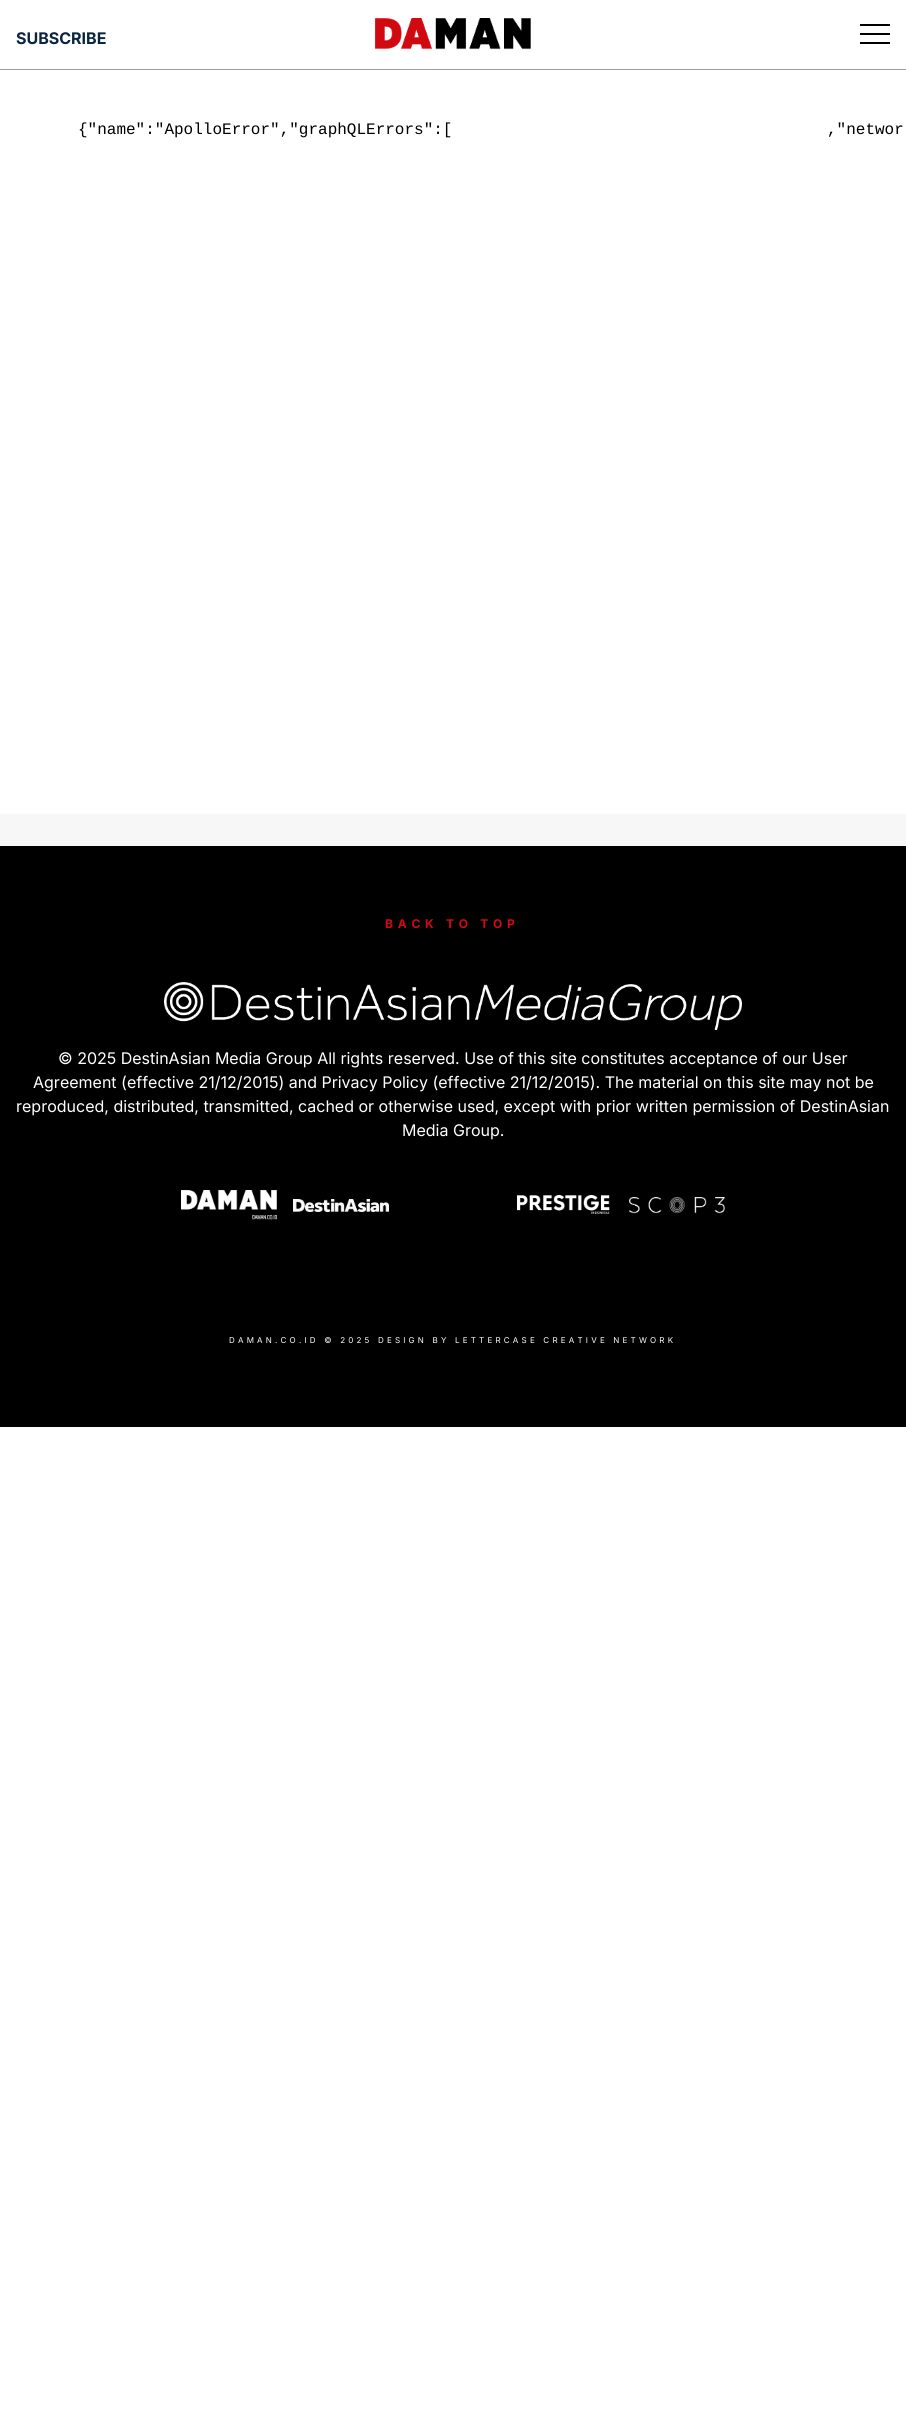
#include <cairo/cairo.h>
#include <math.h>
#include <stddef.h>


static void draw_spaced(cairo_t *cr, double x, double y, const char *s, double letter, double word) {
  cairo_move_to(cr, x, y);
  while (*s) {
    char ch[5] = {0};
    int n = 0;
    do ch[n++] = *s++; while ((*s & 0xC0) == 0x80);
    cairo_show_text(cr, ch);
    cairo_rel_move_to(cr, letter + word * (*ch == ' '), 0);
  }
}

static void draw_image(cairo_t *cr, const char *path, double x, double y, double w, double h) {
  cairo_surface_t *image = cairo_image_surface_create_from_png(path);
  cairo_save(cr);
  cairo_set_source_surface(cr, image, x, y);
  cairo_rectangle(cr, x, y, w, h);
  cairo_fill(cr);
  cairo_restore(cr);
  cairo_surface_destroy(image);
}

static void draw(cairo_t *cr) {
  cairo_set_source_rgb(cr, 1, 1, 1);
  cairo_paint(cr);
  cairo_set_source_rgb(cr, 157 / 255.0, 157 / 255.0, 156 / 255.0);
  cairo_rectangle(cr, 0, 69, 906, 1);
  cairo_fill(cr);
  draw_image(cr, "images/1.png", 375, 18, 156, 32);
  cairo_set_source_rgb(cr, 0, 0, 0);
  cairo_rectangle(cr, 860, 24, 30, 2);
  cairo_fill(cr);
  cairo_rectangle(cr, 860, 33, 30, 2);
  cairo_fill(cr);
  cairo_rectangle(cr, 860, 42, 30, 2);
  cairo_fill(cr);
  cairo_set_source_rgb(cr, 247 / 255.0, 247 / 255.0, 247 / 255.0);
  cairo_rectangle(cr, 0, 814, 906, 32);
  cairo_fill(cr);
  cairo_set_source_rgb(cr, 0, 0, 0);
  cairo_rectangle(cr, 0, 846, 906, 581);
  cairo_fill(cr);
  draw_image(cr, "images/2.png", 164, 982, 578, 48);
  draw_image(cr, "images/3.png", 181, 1190, 96, 30);
  draw_image(cr, "images/4.png", 293, 1199, 96, 13);
  draw_image(cr, "images/5.png", 517, 1195, 93, 19);
  draw_image(cr, "images/6.png", 629, 1197, 96, 17);
  cairo_select_font_face(cr, "Inter", CAIRO_FONT_SLANT_NORMAL, CAIRO_FONT_WEIGHT_BOLD);
  cairo_set_font_size(cr, 16);
  cairo_set_source_rgb(cr, 10 / 255.0, 37 / 255.0, 64 / 255.0);
  cairo_move_to(cr, 16, 44);
  cairo_show_text(cr, "SUBSCRIBE");
  cairo_select_font_face(cr, "Liberation Mono", CAIRO_FONT_SLANT_NORMAL, CAIRO_FONT_WEIGHT_NORMAL);
  cairo_set_source_rgb(cr, 0, 0, 0);
  cairo_move_to(cr, 78, 134);
  cairo_show_text(cr, "{\"name\":\"ApolloError\",\"graphQLErrors\":[");
  cairo_move_to(cr, 827, 134);
  cairo_show_text(cr, ",\"networ");
  cairo_select_font_face(cr, "Inter", CAIRO_FONT_SLANT_NORMAL, CAIRO_FONT_WEIGHT_BOLD);
  cairo_set_font_size(cr, 12);
  cairo_set_source_rgb(cr, 210 / 255.0, 10 / 255.0, 17 / 255.0);
  draw_spaced(cr, 385, 928, "BACK TO TOP", 4.75, 0);
  cairo_select_font_face(cr, "Inter", CAIRO_FONT_SLANT_NORMAL, CAIRO_FONT_WEIGHT_NORMAL);
  cairo_set_font_size(cr, 16);
  cairo_set_source_rgb(cr, 1, 1, 1);
  cairo_move_to(cr, 58, 1064);
  cairo_show_text(cr, "© 2025 DestinAsian Media Group All rights reserved. Use of this site constitutes acceptance of our User");
  cairo_move_to(cr, 33, 1088);
  cairo_show_text(cr, "Agreement (effective 21/12/2015) and Privacy Policy (effective 21/12/2015). The material on this site may not be");
  cairo_move_to(cr, 16, 1112);
  cairo_show_text(cr, "reproduced, distributed, transmitted, cached or otherwise used, except with prior written permission of DestinAsian");
  cairo_move_to(cr, 402, 1136);
  cairo_show_text(cr, "Media Group.");
  cairo_set_font_size(cr, 8);
  draw_spaced(cr, 229, 1343, "DAMAN.CO.ID © 2025 DESIGN BY LETTERCASE CREATIVE NETWORK", 3.2, 0);
}

int main(void) {
  cairo_surface_t *surface = cairo_image_surface_create(CAIRO_FORMAT_RGB24, 906, 2429);
  cairo_t *cr = cairo_create(surface);
  cairo_font_options_t *options = cairo_font_options_create();
  cairo_font_options_set_hint_metrics(options, CAIRO_HINT_METRICS_OFF);
  cairo_font_options_set_hint_style(options, CAIRO_HINT_STYLE_NONE);
  cairo_set_font_options(cr, options);
  cairo_set_miter_limit(cr, 4);
  draw(cr);
  cairo_surface_write_to_png(surface, "out.png");
  cairo_font_options_destroy(options);
  cairo_destroy(cr);
  cairo_surface_destroy(surface);
  return 0;
}
